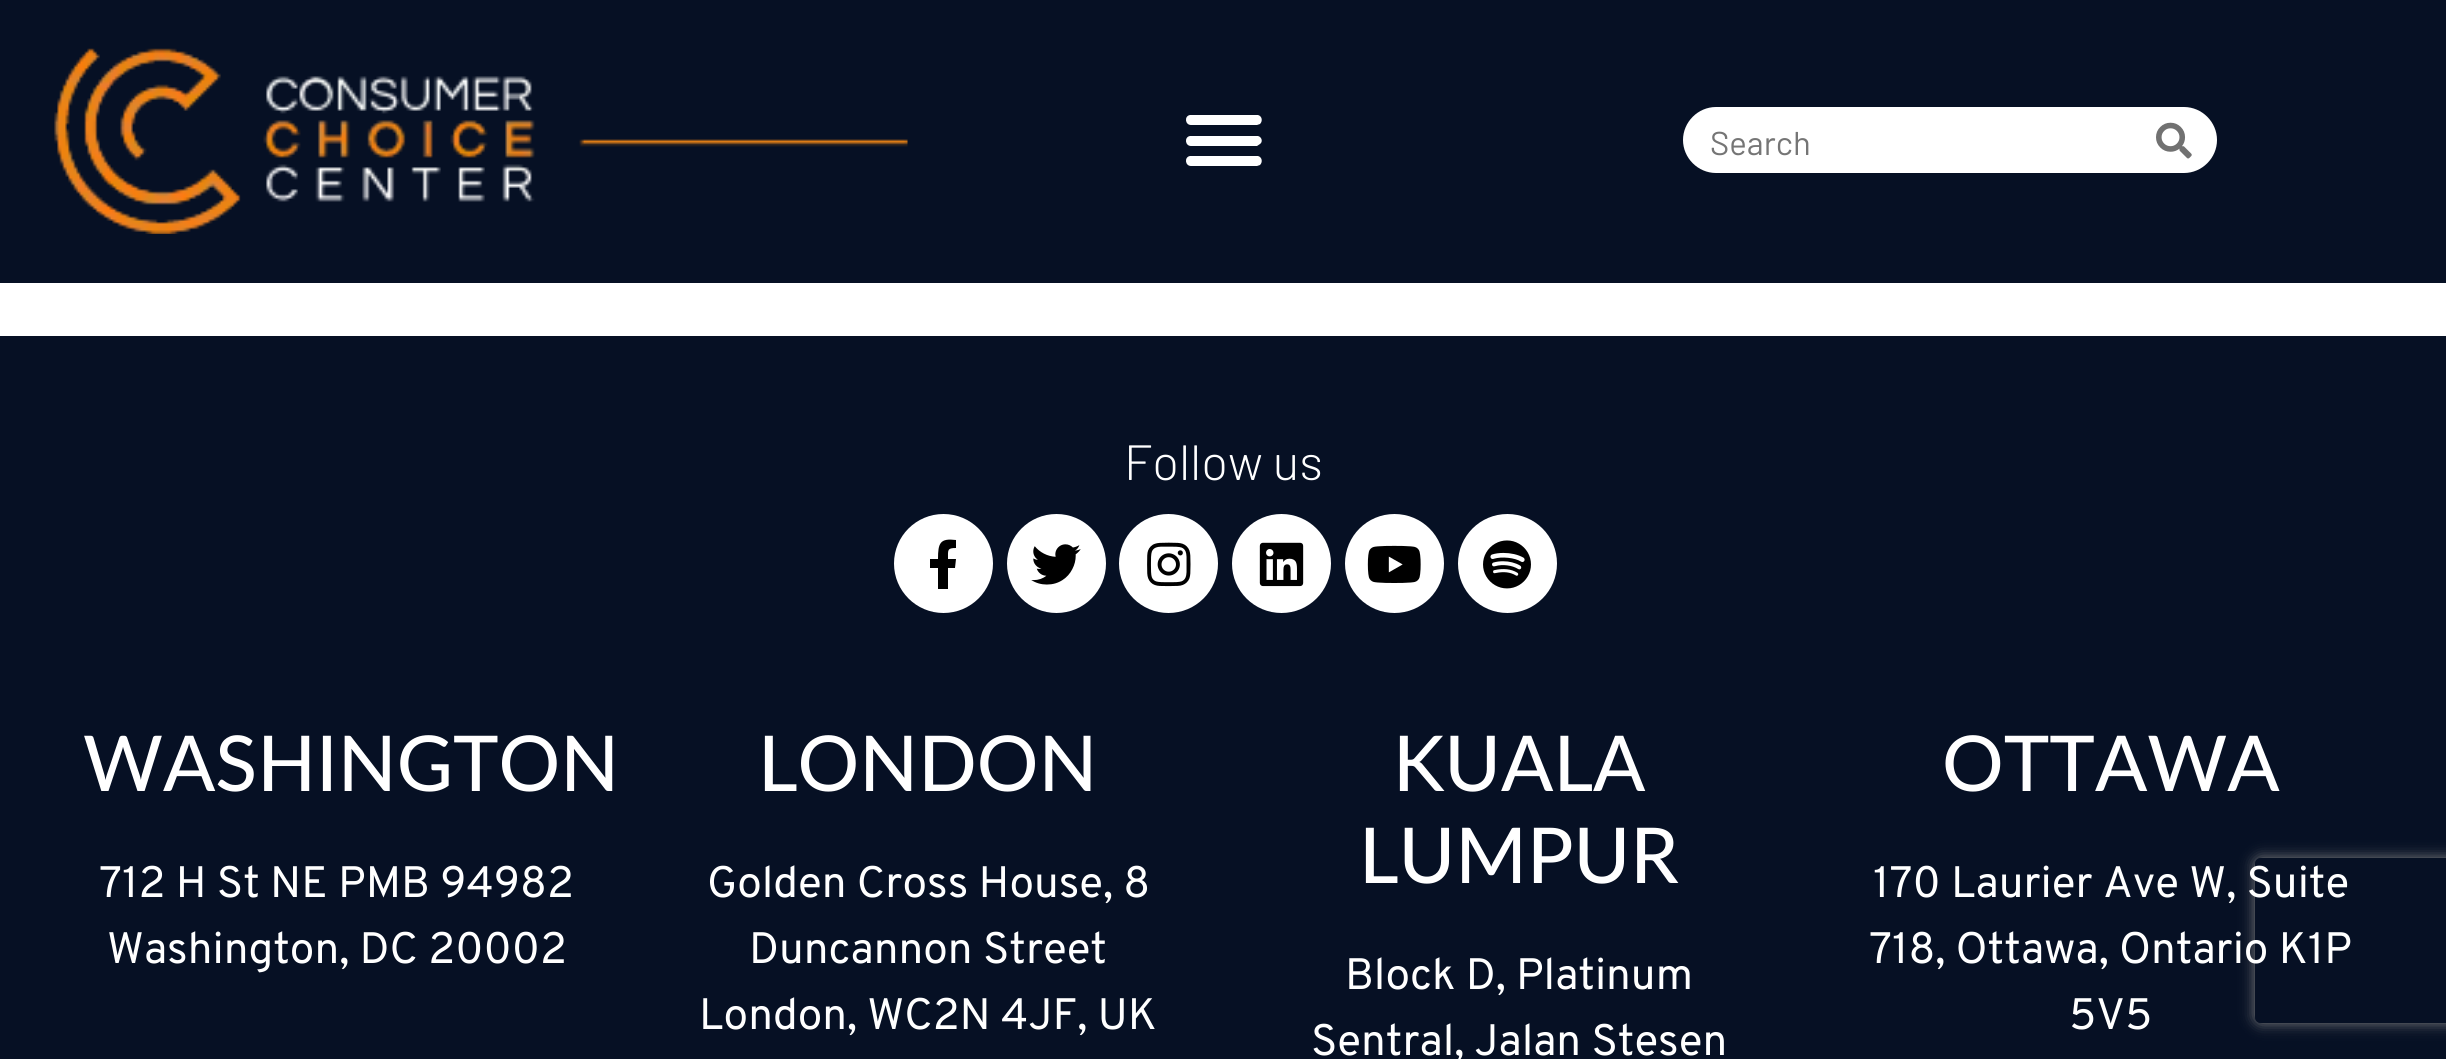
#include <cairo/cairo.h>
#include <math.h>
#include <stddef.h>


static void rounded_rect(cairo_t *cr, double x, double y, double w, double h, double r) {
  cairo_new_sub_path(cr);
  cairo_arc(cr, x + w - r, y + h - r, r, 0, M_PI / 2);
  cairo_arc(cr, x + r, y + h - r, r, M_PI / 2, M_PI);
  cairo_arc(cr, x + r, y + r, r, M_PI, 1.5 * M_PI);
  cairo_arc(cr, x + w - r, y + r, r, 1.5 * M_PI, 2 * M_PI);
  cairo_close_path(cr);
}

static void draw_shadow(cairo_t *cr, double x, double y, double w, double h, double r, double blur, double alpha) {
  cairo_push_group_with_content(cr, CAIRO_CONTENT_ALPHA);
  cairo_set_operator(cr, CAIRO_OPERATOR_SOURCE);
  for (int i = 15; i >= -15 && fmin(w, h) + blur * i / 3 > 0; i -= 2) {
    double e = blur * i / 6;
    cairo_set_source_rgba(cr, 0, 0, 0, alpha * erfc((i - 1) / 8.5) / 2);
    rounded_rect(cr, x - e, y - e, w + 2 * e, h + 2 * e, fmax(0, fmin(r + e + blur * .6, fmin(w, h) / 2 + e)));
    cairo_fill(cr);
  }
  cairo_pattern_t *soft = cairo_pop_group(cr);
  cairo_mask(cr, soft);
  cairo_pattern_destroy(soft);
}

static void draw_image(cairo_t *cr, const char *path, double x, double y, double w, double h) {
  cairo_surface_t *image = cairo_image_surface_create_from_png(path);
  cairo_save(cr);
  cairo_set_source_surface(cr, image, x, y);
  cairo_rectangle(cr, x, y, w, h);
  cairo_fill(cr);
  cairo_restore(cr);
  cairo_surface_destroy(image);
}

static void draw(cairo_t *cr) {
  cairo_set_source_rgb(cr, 1, 1, 1);
  cairo_paint(cr);
  cairo_set_source_rgb(cr, 6 / 255.0, 16 / 255.0, 36 / 255.0);
  cairo_rectangle(cr, 0, 0, 2446, 283);
  cairo_fill(cr);
  draw_image(cr, "images/1.png", 54, 48, 854, 186);
  cairo_set_source_rgb(cr, 1, 1, 1);
  cairo_new_path(cr);
  cairo_move_to(cr, 1191, 125);
  cairo_line_to(cr, 1257, 125);
  cairo_line_to(cr, 1260, 124);
  cairo_curve_to(cr, 1263, 121, 1262, 116, 1258, 115);
  cairo_line_to(cr, 1190, 115);
  cairo_curve_to(cr, 1184, 116, 1185, 125, 1191, 125);
  cairo_close_path(cr);
  cairo_move_to(cr, 1191, 146);
  cairo_line_to(cr, 1257, 146);
  cairo_line_to(cr, 1260, 144);
  cairo_curve_to(cr, 1263, 142, 1262, 137, 1258, 136);
  cairo_line_to(cr, 1190, 136);
  cairo_curve_to(cr, 1184, 137, 1185, 146, 1191, 146);
  cairo_close_path(cr);
  cairo_move_to(cr, 1191, 166);
  cairo_line_to(cr, 1257, 166);
  cairo_line_to(cr, 1260, 165);
  cairo_curve_to(cr, 1263, 162, 1262, 157, 1258, 156);
  cairo_line_to(cr, 1190, 156);
  cairo_curve_to(cr, 1184, 157, 1185, 166, 1191, 166);
  cairo_close_path(cr);
  cairo_fill(cr);
  cairo_new_path(cr);
  cairo_move_to(cr, 1716, 107);
  cairo_line_to(cr, 2151, 107);
  cairo_line_to(cr, 2151, 173);
  cairo_line_to(cr, 1716, 173);
  cairo_curve_to(cr, 1698, 173, 1683, 158, 1683, 140);
  cairo_curve_to(cr, 1683, 122, 1698, 107, 1716, 107);
  cairo_close_path(cr);
  cairo_fill(cr);
  cairo_new_path(cr);
  cairo_move_to(cr, 2151, 107);
  cairo_line_to(cr, 2184, 107);
  cairo_curve_to(cr, 2202, 107, 2217, 122, 2217, 140);
  cairo_curve_to(cr, 2217, 158, 2202, 173, 2184, 173);
  cairo_line_to(cr, 2151, 173);
  cairo_close_path(cr);
  cairo_fill(cr);
  draw_image(cr, "images/2.png", 2156, 122, 36, 37);
  cairo_set_source_rgb(cr, 6 / 255.0, 16 / 255.0, 36 / 255.0);
  cairo_rectangle(cr, 0, 336, 2446, 723);
  cairo_fill(cr);
  cairo_set_source_rgb(cr, 1, 1, 1);
  cairo_arc(cr, 943.5, 563.5, 49.5, 0, 2 * M_PI);
  cairo_fill(cr);
  cairo_set_source_rgb(cr, 0, 0, 0);
  cairo_new_path(cr);
  cairo_move_to(cr, 955, 568);
  cairo_line_to(cr, 948, 568);
  cairo_line_to(cr, 948, 589);
  cairo_line_to(cr, 938, 589);
  cairo_line_to(cr, 938, 568);
  cairo_line_to(cr, 930, 568);
  cairo_line_to(cr, 930, 559);
  cairo_line_to(cr, 938, 559);
  cairo_curve_to(cr, 938, 543, 940, 538, 956, 540);
  cairo_line_to(cr, 956, 548);
  cairo_curve_to(cr, 947, 548, 948, 550, 948, 559);
  cairo_line_to(cr, 956, 559);
  cairo_close_path(cr);
  cairo_fill(cr);
  cairo_set_source_rgb(cr, 1, 1, 1);
  cairo_arc(cr, 1056.5, 563.5, 49.5, 0, 2 * M_PI);
  cairo_fill(cr);
  draw_image(cr, "images/3.png", 1031, 544, 50, 41);
  cairo_arc(cr, 1168.5, 563.5, 49.5, 0, 2 * M_PI);
  cairo_fill(cr);
  draw_image(cr, "images/4.png", 1147, 542, 44, 45);
  cairo_arc(cr, 1281.5, 563.5, 49.5, 0, 2 * M_PI);
  cairo_fill(cr);
  draw_image(cr, "images/5.png", 1259, 542, 45, 45);
  cairo_arc(cr, 1394.5, 563.5, 49.5, 0, 2 * M_PI);
  cairo_fill(cr);
  draw_image(cr, "images/6.png", 1367, 545, 54, 38);
  cairo_arc(cr, 1507.5, 563.5, 49.5, 0, 2 * M_PI);
  cairo_fill(cr);
  draw_image(cr, "images/7.png", 1483, 540, 48, 49);
  cairo_save(cr);
  cairo_set_fill_rule(cr, CAIRO_FILL_RULE_EVEN_ODD);
  cairo_new_path(cr);
  cairo_move_to(cr, 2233, 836);
  cairo_line_to(cr, 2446, 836);
  cairo_line_to(cr, 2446, 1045);
  cairo_line_to(cr, 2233, 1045);
  cairo_close_path(cr);
  cairo_move_to(cr, 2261, 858);
  cairo_line_to(cr, 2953, 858);
  cairo_curve_to(cr, 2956.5, 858, 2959, 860.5, 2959, 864);
  cairo_line_to(cr, 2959, 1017);
  cairo_curve_to(cr, 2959, 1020.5, 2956.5, 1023, 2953, 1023);
  cairo_line_to(cr, 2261, 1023);
  cairo_curve_to(cr, 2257.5, 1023, 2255, 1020.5, 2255, 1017);
  cairo_line_to(cr, 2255, 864);
  cairo_curve_to(cr, 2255, 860.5, 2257.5, 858, 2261, 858);
  cairo_close_path(cr);
  cairo_clip(cr);
  cairo_set_source_rgb(cr, 128 / 255.0, 128 / 255.0, 128 / 255.0);
  draw_shadow(cr, 2255, 858, 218, 165, 6, 7, 1);
  cairo_restore(cr);
  cairo_select_font_face(cr, "Barlow", CAIRO_FONT_SLANT_NORMAL, CAIRO_FONT_WEIGHT_NORMAL);
  cairo_set_font_size(cr, 33);
  cairo_set_source_rgb(cr, 117 / 255.0, 117 / 255.0, 117 / 255.0);
  cairo_move_to(cr, 1710, 155);
  cairo_show_text(cr, "Search");
  cairo_select_font_face(cr, "Barlow Light", CAIRO_FONT_SLANT_NORMAL, CAIRO_FONT_WEIGHT_NORMAL);
  cairo_set_font_size(cr, 49.5);
  cairo_set_source_rgb(cr, 1, 1, 1);
  cairo_move_to(cr, 1124, 480);
  cairo_show_text(cr, "Follow us");
  cairo_select_font_face(cr, "Lato Medium", CAIRO_FONT_SLANT_NORMAL, CAIRO_FONT_WEIGHT_NORMAL);
  cairo_set_font_size(cr, 77);
  cairo_move_to(cr, 83, 791);
  cairo_show_text(cr, "WASHINGTON");
  cairo_select_font_face(cr, "Overpass", CAIRO_FONT_SLANT_NORMAL, CAIRO_FONT_WEIGHT_NORMAL);
  cairo_set_font_size(cr, 44);
  cairo_move_to(cr, 99, 897);
  cairo_show_text(cr, "712 H St NE PMB 94982");
  cairo_move_to(cr, 107, 963);
  cairo_show_text(cr, "Washington, DC 20002");
  cairo_select_font_face(cr, "Lato Medium", CAIRO_FONT_SLANT_NORMAL, CAIRO_FONT_WEIGHT_NORMAL);
  cairo_set_font_size(cr, 77);
  cairo_move_to(cr, 758, 791);
  cairo_show_text(cr, "LONDON");
  cairo_select_font_face(cr, "Overpass", CAIRO_FONT_SLANT_NORMAL, CAIRO_FONT_WEIGHT_NORMAL);
  cairo_set_font_size(cr, 44);
  cairo_move_to(cr, 707, 897);
  cairo_show_text(cr, "Golden Cross House, 8");
  cairo_move_to(cr, 749, 963);
  cairo_show_text(cr, "Duncannon Street");
  cairo_move_to(cr, 699, 1029);
  cairo_show_text(cr, "London, WC2N 4JF, UK");
  cairo_select_font_face(cr, "Lato Medium", CAIRO_FONT_SLANT_NORMAL, CAIRO_FONT_WEIGHT_NORMAL);
  cairo_set_font_size(cr, 77);
  cairo_move_to(cr, 1393, 791);
  cairo_show_text(cr, "KUALA");
  cairo_move_to(cr, 1359, 883);
  cairo_show_text(cr, "LUMPUR");
  cairo_select_font_face(cr, "Overpass", CAIRO_FONT_SLANT_NORMAL, CAIRO_FONT_WEIGHT_NORMAL);
  cairo_set_font_size(cr, 44);
  cairo_move_to(cr, 1345, 989);
  cairo_show_text(cr, "Block D, Platinum");
  cairo_move_to(cr, 1311, 1055);
  cairo_show_text(cr, "Sentral, Jalan Stesen");
  cairo_select_font_face(cr, "Lato Medium", CAIRO_FONT_SLANT_NORMAL, CAIRO_FONT_WEIGHT_NORMAL);
  cairo_set_font_size(cr, 77);
  cairo_move_to(cr, 1942, 791);
  cairo_show_text(cr, "OTTAWA");
  cairo_select_font_face(cr, "Overpass", CAIRO_FONT_SLANT_NORMAL, CAIRO_FONT_WEIGHT_NORMAL);
  cairo_set_font_size(cr, 44);
  cairo_move_to(cr, 1873, 897);
  cairo_show_text(cr, "170 Laurier Ave W, Suite");
  cairo_move_to(cr, 1869, 963);
  cairo_show_text(cr, "718, Ottawa, Ontario K1P");
  cairo_move_to(cr, 2069, 1029);
  cairo_show_text(cr, "5V5");
}

int main(void) {
  cairo_surface_t *surface = cairo_image_surface_create(CAIRO_FORMAT_RGB24, 2446, 1059);
  cairo_t *cr = cairo_create(surface);
  cairo_font_options_t *options = cairo_font_options_create();
  cairo_font_options_set_hint_metrics(options, CAIRO_HINT_METRICS_OFF);
  cairo_font_options_set_hint_style(options, CAIRO_HINT_STYLE_NONE);
  cairo_set_font_options(cr, options);
  cairo_set_miter_limit(cr, 4);
  draw(cr);
  cairo_surface_write_to_png(surface, "out.png");
  cairo_font_options_destroy(options);
  cairo_destroy(cr);
  cairo_surface_destroy(surface);
  return 0;
}
